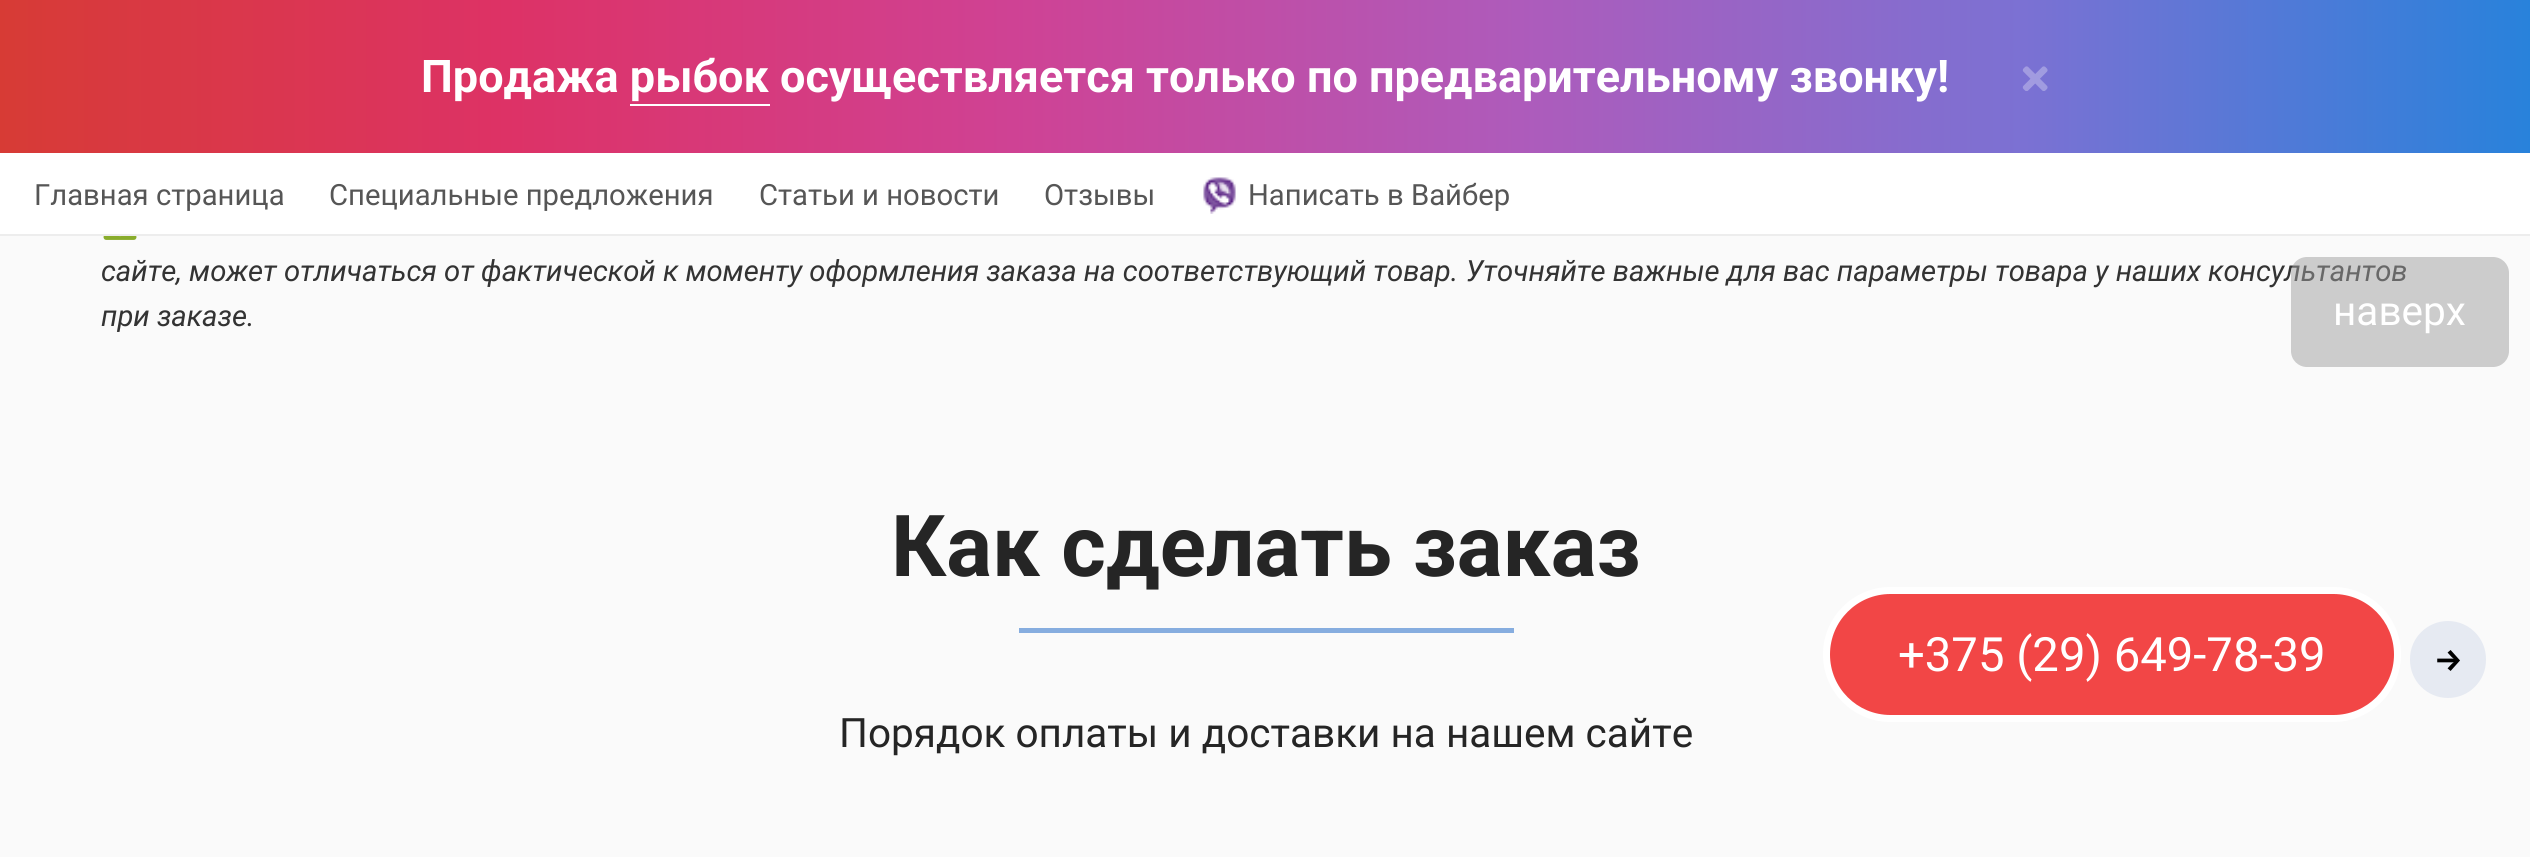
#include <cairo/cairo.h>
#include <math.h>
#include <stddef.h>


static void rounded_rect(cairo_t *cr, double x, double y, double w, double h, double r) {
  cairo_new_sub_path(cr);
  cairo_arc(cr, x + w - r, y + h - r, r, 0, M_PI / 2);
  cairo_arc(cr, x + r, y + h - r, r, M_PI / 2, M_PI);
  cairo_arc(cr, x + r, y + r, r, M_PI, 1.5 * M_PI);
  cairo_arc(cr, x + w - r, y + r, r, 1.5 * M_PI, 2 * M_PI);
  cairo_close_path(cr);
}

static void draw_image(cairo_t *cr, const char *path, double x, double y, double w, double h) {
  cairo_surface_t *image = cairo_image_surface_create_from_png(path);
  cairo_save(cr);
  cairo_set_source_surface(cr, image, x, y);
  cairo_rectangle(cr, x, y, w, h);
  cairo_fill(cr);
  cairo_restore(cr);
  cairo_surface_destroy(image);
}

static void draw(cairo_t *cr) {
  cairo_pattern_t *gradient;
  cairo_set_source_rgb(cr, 250 / 255.0, 250 / 255.0, 250 / 255.0);
  cairo_paint(cr);
  gradient = cairo_pattern_create_linear(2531, 76, 0, 77);
  cairo_pattern_add_color_stop_rgba(gradient, 0, 40 / 255.0, 130 / 255.0, 219 / 255.0, 1);
  cairo_pattern_add_color_stop_rgba(gradient, 0.2, 123 / 255.0, 113 / 255.0, 211 / 255.0, 1);
  cairo_pattern_add_color_stop_rgba(gradient, 0.4, 174 / 255.0, 91 / 255.0, 187 / 255.0, 1);
  cairo_pattern_add_color_stop_rgba(gradient, 0.6, 207 / 255.0, 66 / 255.0, 148 / 255.0, 1);
  cairo_pattern_add_color_stop_rgba(gradient, 0.8, 221 / 255.0, 50 / 255.0, 102 / 255.0, 1);
  cairo_pattern_add_color_stop_rgba(gradient, 1, 215 / 255.0, 59 / 255.0, 53 / 255.0, 1);
  cairo_set_source(cr, gradient);
  cairo_pattern_destroy(gradient);
  cairo_rectangle(cr, 0, 0, 2530, 153);
  cairo_fill(cr);
  draw_image(cr, "images/1.png", 2022, 66, 26, 25);
  cairo_set_source_rgb(cr, 1, 1, 1);
  cairo_rectangle(cr, 630, 104, 140, 2);
  cairo_fill(cr);
  cairo_rectangle(cr, 0, 153, 2530, 81);
  cairo_fill(cr);
  cairo_set_source_rgb(cr, 237 / 255.0, 237 / 255.0, 237 / 255.0);
  cairo_rectangle(cr, 0, 234, 2530, 2);
  cairo_fill(cr);
  draw_image(cr, "images/2.png", 1203, 177, 33, 37);
  draw_image(cr, "images/3.png", 103, 236, 34, 4);
  cairo_set_source_rgb(cr, 134 / 255.0, 173 / 255.0, 223 / 255.0);
  cairo_rectangle(cr, 1019, 628, 495, 5);
  cairo_fill(cr);
  cairo_set_source_rgb(cr, 242 / 255.0, 70 / 255.0, 70 / 255.0);
  rounded_rect(cr, 1826.5, 590.5, 571, 128, 64);
  cairo_fill_preserve(cr);
  cairo_set_source_rgb(cr, 1, 1, 1);
  cairo_set_line_width(cr, 7);
  cairo_stroke(cr);
  cairo_set_source_rgb(cr, 230 / 255.0, 234 / 255.0, 242 / 255.0);
  rounded_rect(cr, 2410, 621, 76, 77, 38);
  cairo_fill(cr);
  cairo_select_font_face(cr, "Roboto", CAIRO_FONT_SLANT_NORMAL, CAIRO_FONT_WEIGHT_BOLD);
  cairo_set_font_size(cr, 45);
  cairo_set_source_rgb(cr, 1, 1, 1);
  cairo_move_to(cr, 421, 92);
  cairo_show_text(cr, "Продажа рыбок осуществляется только по предварительному звонку!");
  cairo_select_font_face(cr, "Roboto", CAIRO_FONT_SLANT_NORMAL, CAIRO_FONT_WEIGHT_NORMAL);
  cairo_set_font_size(cr, 29.25);
  cairo_set_source_rgb(cr, 86 / 255.0, 86 / 255.0, 86 / 255.0);
  cairo_move_to(cr, 34, 205);
  cairo_show_text(cr, "Главная страница");
  cairo_move_to(cr, 329, 205);
  cairo_show_text(cr, "Специальные предложения");
  cairo_move_to(cr, 759, 205);
  cairo_show_text(cr, "Статьи и новости");
  cairo_move_to(cr, 1044, 205);
  cairo_show_text(cr, "Отзывы");
  cairo_move_to(cr, 1248, 205);
  cairo_show_text(cr, "Написать в Вайбер");
  cairo_select_font_face(cr, "Roboto", CAIRO_FONT_SLANT_ITALIC, CAIRO_FONT_WEIGHT_NORMAL);
  cairo_set_source_rgb(cr, 51 / 255.0, 51 / 255.0, 51 / 255.0);
  cairo_move_to(cr, 101, 281);
  cairo_show_text(cr, "сайте, может отличаться от фактической к моменту оформления заказа на соответствующий товар. Уточняйте важные для вас параметры товара у наших консультантов");
  cairo_move_to(cr, 101, 326);
  cairo_show_text(cr, "при заказе.");
  cairo_select_font_face(cr, "Roboto", CAIRO_FONT_SLANT_NORMAL, CAIRO_FONT_WEIGHT_BOLD);
  cairo_set_font_size(cr, 85.5);
  cairo_set_source_rgb(cr, 37 / 255.0, 37 / 255.0, 37 / 255.0);
  cairo_move_to(cr, 891, 576);
  cairo_show_text(cr, "Как сделать заказ");
  cairo_select_font_face(cr, "Roboto", CAIRO_FONT_SLANT_NORMAL, CAIRO_FONT_WEIGHT_NORMAL);
  cairo_set_font_size(cr, 40.5);
  cairo_move_to(cr, 839, 747);
  cairo_show_text(cr, "Порядок оплаты и доставки на нашем сайте");
  cairo_set_source_rgba(cr, 159 / 255.0, 159 / 255.0, 159 / 255.0, 0.5);
  rounded_rect(cr, 2291, 257, 218, 110, 16);
  cairo_fill(cr);
  cairo_set_source_rgb(cr, 1, 1, 1);
  cairo_move_to(cr, 2333, 325);
  cairo_show_text(cr, "наверх");
  cairo_set_font_size(cr, 47.25);
  cairo_move_to(cr, 1898, 671);
  cairo_show_text(cr, "+375 (29) 649-78-39");
  cairo_select_font_face(cr, "Fira Sans SemiBold", CAIRO_FONT_SLANT_NORMAL, CAIRO_FONT_WEIGHT_NORMAL);
  cairo_set_font_size(cr, 32);
  cairo_set_source_rgb(cr, 0, 0, 0);
  cairo_move_to(cr, 2434, 671);
  cairo_show_text(cr, "→");
}

int main(void) {
  cairo_surface_t *surface = cairo_image_surface_create(CAIRO_FORMAT_RGB24, 2530, 857);
  cairo_t *cr = cairo_create(surface);
  cairo_font_options_t *options = cairo_font_options_create();
  cairo_font_options_set_hint_metrics(options, CAIRO_HINT_METRICS_OFF);
  cairo_font_options_set_hint_style(options, CAIRO_HINT_STYLE_NONE);
  cairo_set_font_options(cr, options);
  cairo_set_miter_limit(cr, 4);
  draw(cr);
  cairo_surface_write_to_png(surface, "out.png");
  cairo_font_options_destroy(options);
  cairo_destroy(cr);
  cairo_surface_destroy(surface);
  return 0;
}
